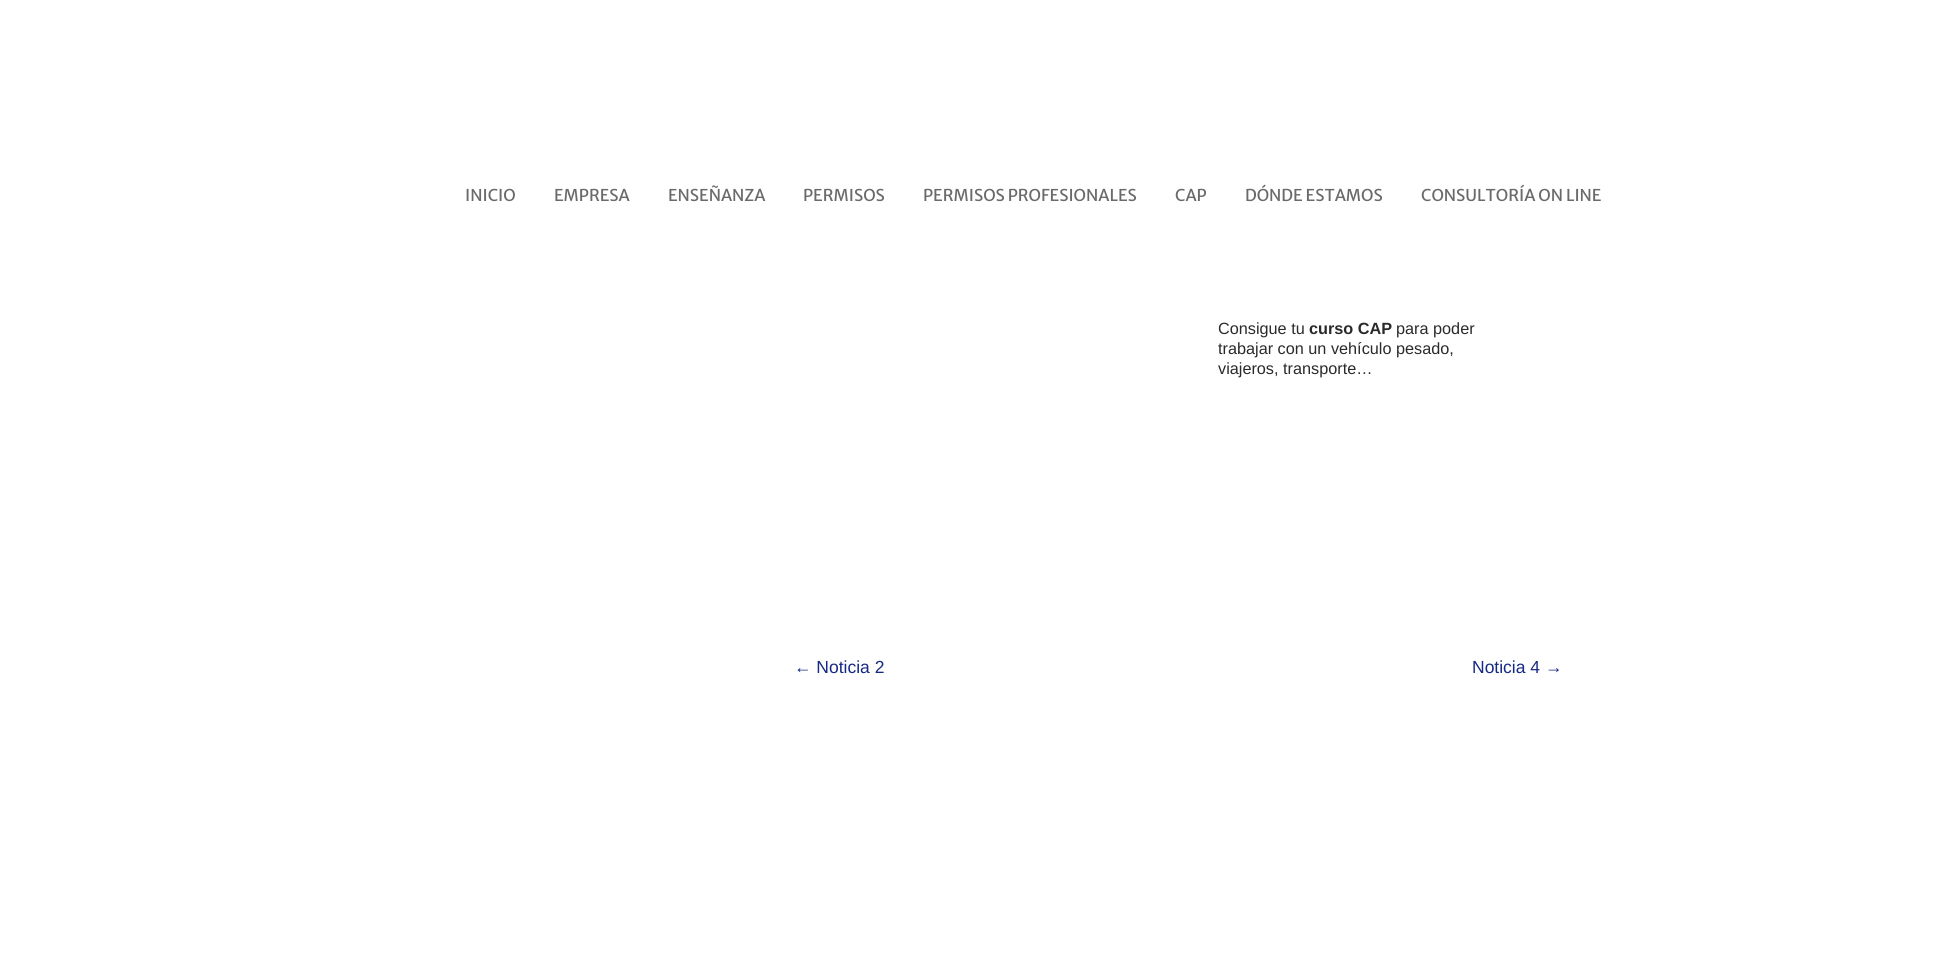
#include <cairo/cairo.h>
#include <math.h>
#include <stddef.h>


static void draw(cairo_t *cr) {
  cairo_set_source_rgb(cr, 1, 1, 1);
  cairo_paint(cr);
  cairo_select_font_face(cr, "Merriweather Sans", CAIRO_FONT_SLANT_NORMAL, CAIRO_FONT_WEIGHT_NORMAL);
  cairo_set_font_size(cr, 16.25);
  cairo_set_source_rgb(cr, 106 / 255.0, 106 / 255.0, 106 / 255.0);
  cairo_move_to(cr, 465, 201);
  cairo_show_text(cr, "INICIO");
  cairo_move_to(cr, 554, 201);
  cairo_show_text(cr, "EMPRESA");
  cairo_move_to(cr, 668, 201);
  cairo_show_text(cr, "ENSEÑANZA");
  cairo_move_to(cr, 803, 201);
  cairo_show_text(cr, "PERMISOS");
  cairo_move_to(cr, 923, 201);
  cairo_show_text(cr, "PERMISOS PROFESIONALES");
  cairo_move_to(cr, 1175, 201);
  cairo_show_text(cr, "CAP");
  cairo_move_to(cr, 1245, 201);
  cairo_show_text(cr, "DÓNDE ESTAMOS");
  cairo_move_to(cr, 1421, 201);
  cairo_show_text(cr, "CONSULTORÍA ON LINE");
  cairo_select_font_face(cr, "Liberation Sans", CAIRO_FONT_SLANT_NORMAL, CAIRO_FONT_WEIGHT_NORMAL);
  cairo_set_source_rgb(cr, 42 / 255.0, 42 / 255.0, 42 / 255.0);
  cairo_move_to(cr, 1218, 334);
  cairo_show_text(cr, "Consigue tu");
  cairo_select_font_face(cr, "Liberation Sans", CAIRO_FONT_SLANT_NORMAL, CAIRO_FONT_WEIGHT_BOLD);
  cairo_move_to(cr, 1309, 334);
  cairo_show_text(cr, "curso CAP");
  cairo_select_font_face(cr, "Liberation Sans", CAIRO_FONT_SLANT_NORMAL, CAIRO_FONT_WEIGHT_NORMAL);
  cairo_move_to(cr, 1396, 334);
  cairo_show_text(cr, "para poder");
  cairo_move_to(cr, 1218, 354);
  cairo_show_text(cr, "trabajar con un vehículo pesado,");
  cairo_move_to(cr, 1218, 374);
  cairo_show_text(cr, "viajeros, transporte…");
  cairo_set_font_size(cr, 17.5);
  cairo_set_source_rgb(cr, 22 / 255.0, 41 / 255.0, 130 / 255.0);
  cairo_move_to(cr, 794, 673);
  cairo_show_text(cr, "← Noticia 2");
  cairo_move_to(cr, 1472, 673);
  cairo_show_text(cr, "Noticia 4 →");
}

int main(void) {
  cairo_surface_t *surface = cairo_image_surface_create(CAIRO_FORMAT_RGB24, 1957, 953);
  cairo_t *cr = cairo_create(surface);
  cairo_font_options_t *options = cairo_font_options_create();
  cairo_font_options_set_hint_metrics(options, CAIRO_HINT_METRICS_OFF);
  cairo_font_options_set_hint_style(options, CAIRO_HINT_STYLE_NONE);
  cairo_set_font_options(cr, options);
  cairo_set_miter_limit(cr, 4);
  draw(cr);
  cairo_surface_write_to_png(surface, "out.png");
  cairo_font_options_destroy(options);
  cairo_destroy(cr);
  cairo_surface_destroy(surface);
  return 0;
}
